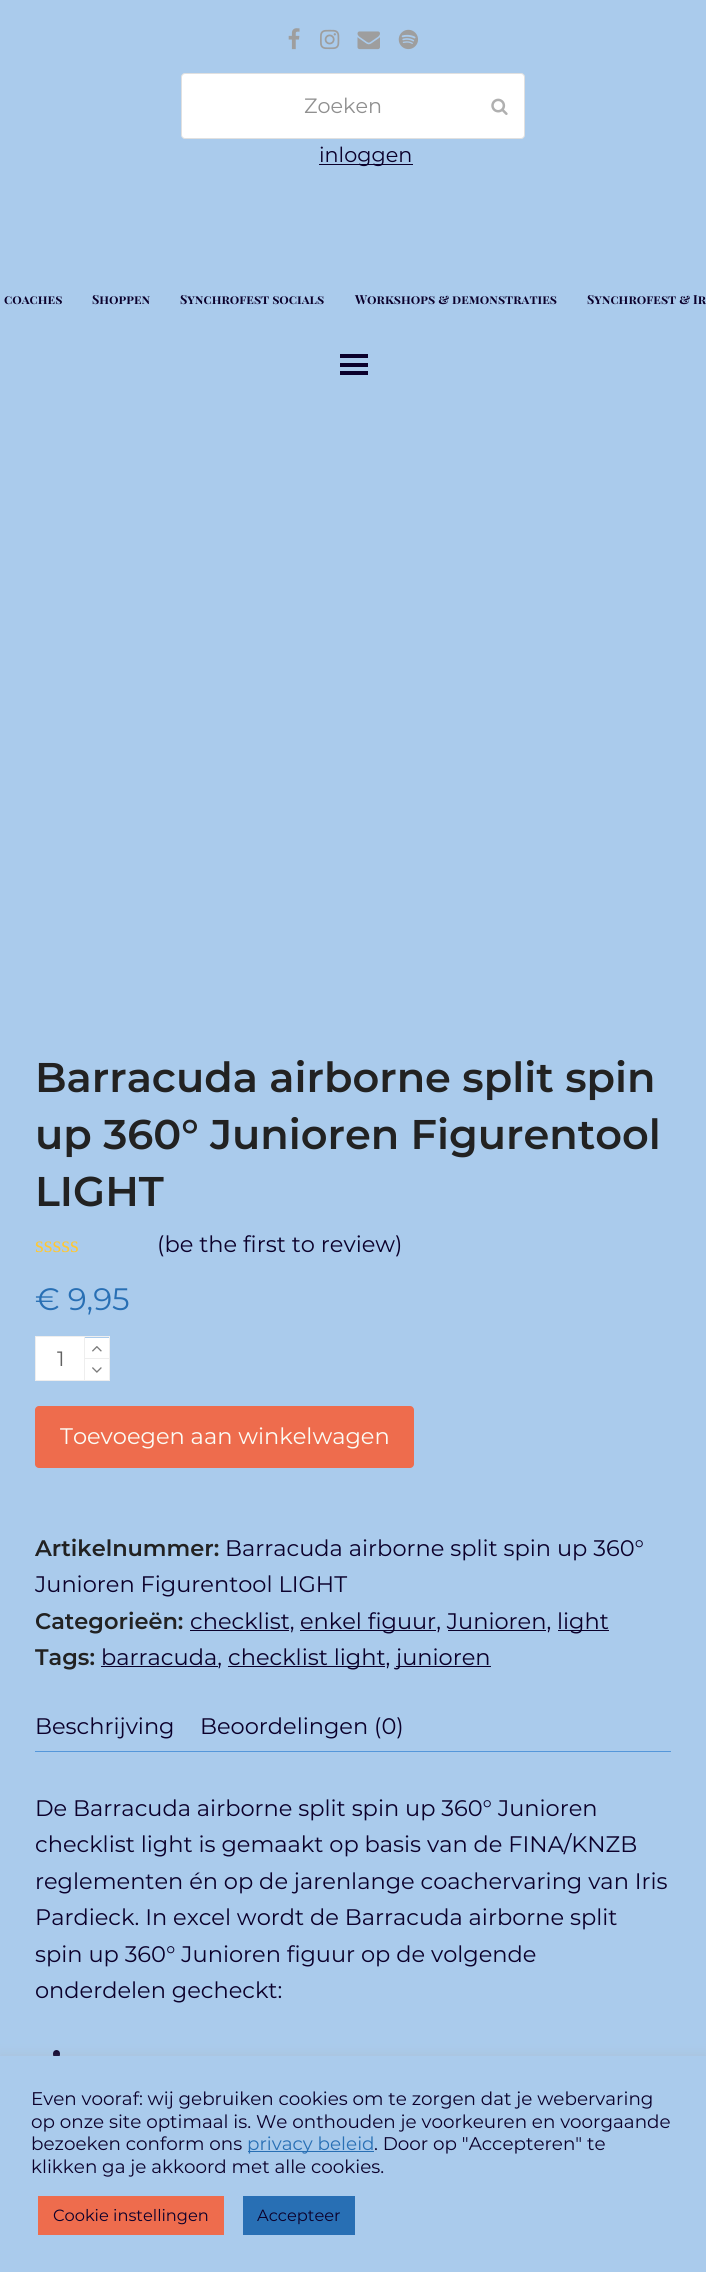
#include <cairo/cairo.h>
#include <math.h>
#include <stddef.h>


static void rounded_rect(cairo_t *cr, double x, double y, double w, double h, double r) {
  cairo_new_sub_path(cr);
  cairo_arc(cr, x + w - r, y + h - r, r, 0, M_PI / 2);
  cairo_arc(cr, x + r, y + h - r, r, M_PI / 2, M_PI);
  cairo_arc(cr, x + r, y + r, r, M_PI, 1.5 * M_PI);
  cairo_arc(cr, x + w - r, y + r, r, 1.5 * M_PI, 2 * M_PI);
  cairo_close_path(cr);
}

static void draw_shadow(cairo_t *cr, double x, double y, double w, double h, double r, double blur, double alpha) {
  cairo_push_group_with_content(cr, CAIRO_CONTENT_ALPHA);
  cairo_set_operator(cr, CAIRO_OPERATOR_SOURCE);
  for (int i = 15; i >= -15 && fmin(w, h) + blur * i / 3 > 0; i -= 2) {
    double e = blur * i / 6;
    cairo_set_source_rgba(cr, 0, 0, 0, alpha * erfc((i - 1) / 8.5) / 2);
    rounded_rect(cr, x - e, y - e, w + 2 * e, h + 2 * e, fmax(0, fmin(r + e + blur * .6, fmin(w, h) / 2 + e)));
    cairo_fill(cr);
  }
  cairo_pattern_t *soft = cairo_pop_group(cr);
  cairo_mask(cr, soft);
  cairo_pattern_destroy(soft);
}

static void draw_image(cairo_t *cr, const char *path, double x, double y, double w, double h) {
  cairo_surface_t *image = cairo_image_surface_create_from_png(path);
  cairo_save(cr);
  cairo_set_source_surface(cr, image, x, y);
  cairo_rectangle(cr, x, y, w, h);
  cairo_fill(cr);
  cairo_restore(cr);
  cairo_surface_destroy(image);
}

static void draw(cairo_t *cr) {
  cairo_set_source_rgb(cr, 170 / 255.0, 203 / 255.0, 236 / 255.0);
  cairo_paint(cr);
  draw_image(cr, "images/1.png", 288, 28, 12, 22);
  draw_image(cr, "images/2.png", 320, 29, 20, 21);
  draw_image(cr, "images/3.png", 357, 31, 23, 19);
  draw_image(cr, "images/4.png", 398, 29, 20, 21);
  cairo_set_source_rgb(cr, 1, 1, 1);
  rounded_rect(cr, 181.5, 73.5, 343, 65, 3.5);
  cairo_fill_preserve(cr);
  cairo_set_source_rgb(cr, 224 / 255.0, 224 / 255.0, 224 / 255.0);
  cairo_set_line_width(cr, 1);
  cairo_stroke(cr);
  draw_image(cr, "images/5.png", 491, 98, 17, 17);
  cairo_set_source_rgb(cr, 11 / 255.0, 0, 43 / 255.0);
  cairo_rectangle(cr, 319, 164, 94, 1);
  cairo_fill(cr);
  cairo_rectangle(cr, 340, 363, 28, 4);
  cairo_fill(cr);
  cairo_rectangle(cr, 340, 354, 28, 4);
  cairo_fill(cr);
  cairo_rectangle(cr, 340, 371, 28, 4);
  cairo_fill(cr);
  cairo_set_source_rgb(cr, 1, 1, 1);
  cairo_rectangle(cr, 35.5, 1336.5, 49, 44);
  cairo_fill_preserve(cr);
  cairo_set_source_rgb(cr, 238 / 255.0, 238 / 255.0, 238 / 255.0);
  cairo_stroke(cr);
  cairo_rectangle(cr, 85, 1336, 25, 1);
  cairo_fill(cr);
  cairo_rectangle(cr, 109, 1336, 1, 45);
  cairo_fill(cr);
  cairo_rectangle(cr, 85, 1380, 25, 1);
  cairo_fill(cr);
  cairo_set_source_rgb(cr, 1, 1, 1);
  cairo_rectangle(cr, 85, 1338, 24, 20);
  cairo_fill(cr);
  draw_image(cr, "images/6.png", 92, 1346, 10, 6);
  cairo_set_source_rgb(cr, 238 / 255.0, 238 / 255.0, 238 / 255.0);
  cairo_rectangle(cr, 85, 1358, 24, 1);
  cairo_fill(cr);
  cairo_set_source_rgb(cr, 1, 1, 1);
  cairo_rectangle(cr, 85, 1359, 24, 21);
  cairo_fill(cr);
  draw_image(cr, "images/7.png", 92, 1367, 10, 6);
  cairo_set_source_rgb(cr, 238 / 255.0, 108 / 255.0, 77 / 255.0);
  rounded_rect(cr, 35, 1406, 379, 62, 4);
  cairo_fill(cr);
  cairo_set_source_rgb(cr, 11 / 255.0, 0, 43 / 255.0);
  cairo_rectangle(cr, 190, 1630, 99, 1);
  cairo_fill(cr);
  cairo_rectangle(cr, 300, 1630, 136, 1);
  cairo_fill(cr);
  cairo_rectangle(cr, 558, 1630, 51, 1);
  cairo_fill(cr);
  cairo_rectangle(cr, 448, 1630, 98, 1);
  cairo_fill(cr);
  cairo_rectangle(cr, 101, 1666, 117, 1);
  cairo_fill(cr);
  cairo_rectangle(cr, 228, 1666, 157, 1);
  cairo_fill(cr);
  cairo_rectangle(cr, 396, 1666, 95, 1);
  cairo_fill(cr);
  cairo_set_source_rgb(cr, 85 / 255.0, 151 / 255.0, 218 / 255.0);
  cairo_rectangle(cr, 35, 1751, 636, 1);
  cairo_fill(cr);
  cairo_set_source_rgb(cr, 11 / 255.0, 0, 43 / 255.0);
  rounded_rect(cr, 53, 2050, 7, 8, 3.5);
  cairo_fill(cr);
  cairo_set_source_rgb(cr, 172 / 255.0, 171 / 255.0, 171 / 255.0);
  draw_shadow(cr, 0, 2055, 706, 216, 0, 6, 0.3);
  cairo_set_source_rgb(cr, 170 / 255.0, 203 / 255.0, 236 / 255.0);
  cairo_rectangle(cr, 0, 2056, 706, 216);
  cairo_fill(cr);
  cairo_set_source_rgb(cr, 40 / 255.0, 111 / 255.0, 180 / 255.0);
  cairo_rectangle(cr, 248, 2151, 126, 1);
  cairo_fill(cr);
  cairo_set_source_rgb(cr, 238 / 255.0, 108 / 255.0, 77 / 255.0);
  cairo_rectangle(cr, 38, 2196, 186, 39);
  cairo_fill(cr);
  cairo_set_source_rgb(cr, 40 / 255.0, 111 / 255.0, 180 / 255.0);
  cairo_rectangle(cr, 243, 2196, 112, 39);
  cairo_fill(cr);
  cairo_select_font_face(cr, "Montserrat", CAIRO_FONT_SLANT_NORMAL, CAIRO_FONT_WEIGHT_NORMAL);
  cairo_set_font_size(cr, 20.75);
  cairo_set_source_rgb(cr, 144 / 255.0, 144 / 255.0, 144 / 255.0);
  cairo_move_to(cr, 304, 113);
  cairo_show_text(cr, "Zoeken");
  cairo_set_source_rgb(cr, 11 / 255.0, 0, 43 / 255.0);
  cairo_move_to(cr, 319, 162);
  cairo_show_text(cr, "inloggen");
  cairo_select_font_face(cr, "Playfair Display SC", CAIRO_FONT_SLANT_NORMAL, CAIRO_FONT_WEIGHT_BOLD);
  cairo_set_font_size(cr, 12.5);
  cairo_move_to(cr, 4, 304);
  cairo_show_text(cr, "coaches");
  cairo_move_to(cr, 92, 304);
  cairo_show_text(cr, "Shoppen");
  cairo_move_to(cr, 180, 304);
  cairo_show_text(cr, "Synchrofest socials");
  cairo_move_to(cr, 355, 304);
  cairo_show_text(cr, "Workshops & demonstraties");
  cairo_move_to(cr, 587, 304);
  cairo_show_text(cr, "Synchrofest & Ir");
  cairo_select_font_face(cr, "Montserrat SemiBold", CAIRO_FONT_SLANT_NORMAL, CAIRO_FONT_WEIGHT_NORMAL);
  cairo_set_font_size(cr, 41.5);
  cairo_set_source_rgb(cr, 34 / 255.0, 34 / 255.0, 34 / 255.0);
  cairo_move_to(cr, 35, 1092);
  cairo_show_text(cr, "Barracuda airborne split spin");
  cairo_move_to(cr, 35, 1149);
  cairo_show_text(cr, "up 360° Junioren Figurentool");
  cairo_move_to(cr, 35, 1206);
  cairo_show_text(cr, "LIGHT");
  cairo_select_font_face(cr, "Liberation Serif", CAIRO_FONT_SLANT_NORMAL, CAIRO_FONT_WEIGHT_NORMAL);
  cairo_set_font_size(cr, 22.5);
  cairo_set_source_rgb(cr, 1, 200 / 255.0, 51 / 255.0);
  cairo_move_to(cr, 35, 1252);
  cairo_show_text(cr, "sssss");
  cairo_select_font_face(cr, "Montserrat", CAIRO_FONT_SLANT_NORMAL, CAIRO_FONT_WEIGHT_NORMAL);
  cairo_set_source_rgb(cr, 11 / 255.0, 0, 43 / 255.0);
  cairo_move_to(cr, 157, 1252);
  cairo_show_text(cr, "(be the first to review)");
  cairo_set_font_size(cr, 31);
  cairo_set_source_rgb(cr, 40 / 255.0, 111 / 255.0, 180 / 255.0);
  cairo_move_to(cr, 35, 1310);
  cairo_show_text(cr, "€ 9,95");
  cairo_set_font_size(cr, 20.75);
  cairo_set_source_rgb(cr, 97 / 255.0, 97 / 255.0, 97 / 255.0);
  cairo_move_to(cr, 57, 1366);
  cairo_show_text(cr, "1");
  cairo_set_font_size(cr, 22.5);
  cairo_set_source_rgb(cr, 251 / 255.0, 252 / 255.0, 245 / 255.0);
  cairo_move_to(cr, 60, 1444);
  cairo_show_text(cr, "Toevoegen aan winkelwagen");
  cairo_select_font_face(cr, "Montserrat SemiBold", CAIRO_FONT_SLANT_NORMAL, CAIRO_FONT_WEIGHT_NORMAL);
  cairo_set_source_rgb(cr, 34 / 255.0, 34 / 255.0, 34 / 255.0);
  cairo_move_to(cr, 35, 1556);
  cairo_show_text(cr, "Artikelnummer:");
  cairo_select_font_face(cr, "Montserrat", CAIRO_FONT_SLANT_NORMAL, CAIRO_FONT_WEIGHT_NORMAL);
  cairo_set_source_rgb(cr, 11 / 255.0, 0, 43 / 255.0);
  cairo_move_to(cr, 225, 1556);
  cairo_show_text(cr, "Barracuda airborne split spin up 360°");
  cairo_move_to(cr, 35, 1592);
  cairo_show_text(cr, "Junioren Figurentool LIGHT");
  cairo_select_font_face(cr, "Montserrat SemiBold", CAIRO_FONT_SLANT_NORMAL, CAIRO_FONT_WEIGHT_NORMAL);
  cairo_set_source_rgb(cr, 34 / 255.0, 34 / 255.0, 34 / 255.0);
  cairo_move_to(cr, 35, 1629);
  cairo_show_text(cr, "Categorieën:");
  cairo_select_font_face(cr, "Montserrat", CAIRO_FONT_SLANT_NORMAL, CAIRO_FONT_WEIGHT_NORMAL);
  cairo_set_source_rgb(cr, 11 / 255.0, 0, 43 / 255.0);
  cairo_move_to(cr, 190, 1629);
  cairo_show_text(cr, "checklist,");
  cairo_move_to(cr, 300, 1629);
  cairo_show_text(cr, "enkel figuur, Junioren,");
  cairo_move_to(cr, 557, 1629);
  cairo_show_text(cr, "light");
  cairo_select_font_face(cr, "Montserrat SemiBold", CAIRO_FONT_SLANT_NORMAL, CAIRO_FONT_WEIGHT_NORMAL);
  cairo_set_source_rgb(cr, 34 / 255.0, 34 / 255.0, 34 / 255.0);
  cairo_move_to(cr, 35, 1665);
  cairo_show_text(cr, "Tags:");
  cairo_select_font_face(cr, "Montserrat", CAIRO_FONT_SLANT_NORMAL, CAIRO_FONT_WEIGHT_NORMAL);
  cairo_set_source_rgb(cr, 11 / 255.0, 0, 43 / 255.0);
  cairo_move_to(cr, 101, 1665);
  cairo_show_text(cr, "barracuda,");
  cairo_move_to(cr, 228, 1665);
  cairo_show_text(cr, "checklist light,");
  cairo_move_to(cr, 396, 1665);
  cairo_show_text(cr, "junioren");
  cairo_move_to(cr, 35, 1734);
  cairo_show_text(cr, "Beschrijving");
  cairo_move_to(cr, 200, 1734);
  cairo_show_text(cr, "Beoordelingen (0)");
  cairo_move_to(cr, 35, 1816);
  cairo_show_text(cr, "De Barracuda airborne split spin up 360° Junioren");
  cairo_move_to(cr, 35, 1852);
  cairo_show_text(cr, "checklist light is gemaakt op basis van de FINA/KNZB");
  cairo_move_to(cr, 35, 1889);
  cairo_show_text(cr, "reglementen én op de jarenlange coachervaring van Iris");
  cairo_move_to(cr, 35, 1925);
  cairo_show_text(cr, "Pardieck. In excel wordt de Barracuda airborne split");
  cairo_move_to(cr, 35, 1962);
  cairo_show_text(cr, "spin up 360° Junioren figuur op de volgende");
  cairo_move_to(cr, 35, 1998);
  cairo_show_text(cr, "onderdelen gecheckt:");
  cairo_set_font_size(cr, 18.35);
  cairo_move_to(cr, 31, 2105);
  cairo_show_text(cr, "Even vooraf: wij gebruiken cookies om te zorgen dat je webervaring");
  cairo_move_to(cr, 31, 2128);
  cairo_show_text(cr, "op onze site optimaal is. We onthouden je voorkeuren en voorgaande");
  cairo_move_to(cr, 31, 2150);
  cairo_show_text(cr, "bezoeken conform ons");
  cairo_set_source_rgb(cr, 40 / 255.0, 111 / 255.0, 180 / 255.0);
  cairo_move_to(cr, 247, 2150);
  cairo_show_text(cr, "privacy beleid");
  cairo_set_source_rgb(cr, 11 / 255.0, 0, 43 / 255.0);
  cairo_move_to(cr, 374, 2150);
  cairo_show_text(cr, ". Door op \"Accepteren\" te");
  cairo_move_to(cr, 31, 2173);
  cairo_show_text(cr, "klikken ga je akkoord met alle cookies.");
  cairo_set_font_size(cr, 16.25);
  cairo_move_to(cr, 53, 2221);
  cairo_show_text(cr, "Cookie instellingen");
  cairo_move_to(cr, 257, 2221);
  cairo_show_text(cr, "Accepteer");
}

int main(void) {
  cairo_surface_t *surface = cairo_image_surface_create(CAIRO_FORMAT_RGB24, 706, 2272);
  cairo_t *cr = cairo_create(surface);
  cairo_font_options_t *options = cairo_font_options_create();
  cairo_font_options_set_hint_metrics(options, CAIRO_HINT_METRICS_OFF);
  cairo_font_options_set_hint_style(options, CAIRO_HINT_STYLE_NONE);
  cairo_set_font_options(cr, options);
  cairo_set_miter_limit(cr, 4);
  draw(cr);
  cairo_surface_write_to_png(surface, "out.png");
  cairo_font_options_destroy(options);
  cairo_destroy(cr);
  cairo_surface_destroy(surface);
  return 0;
}
